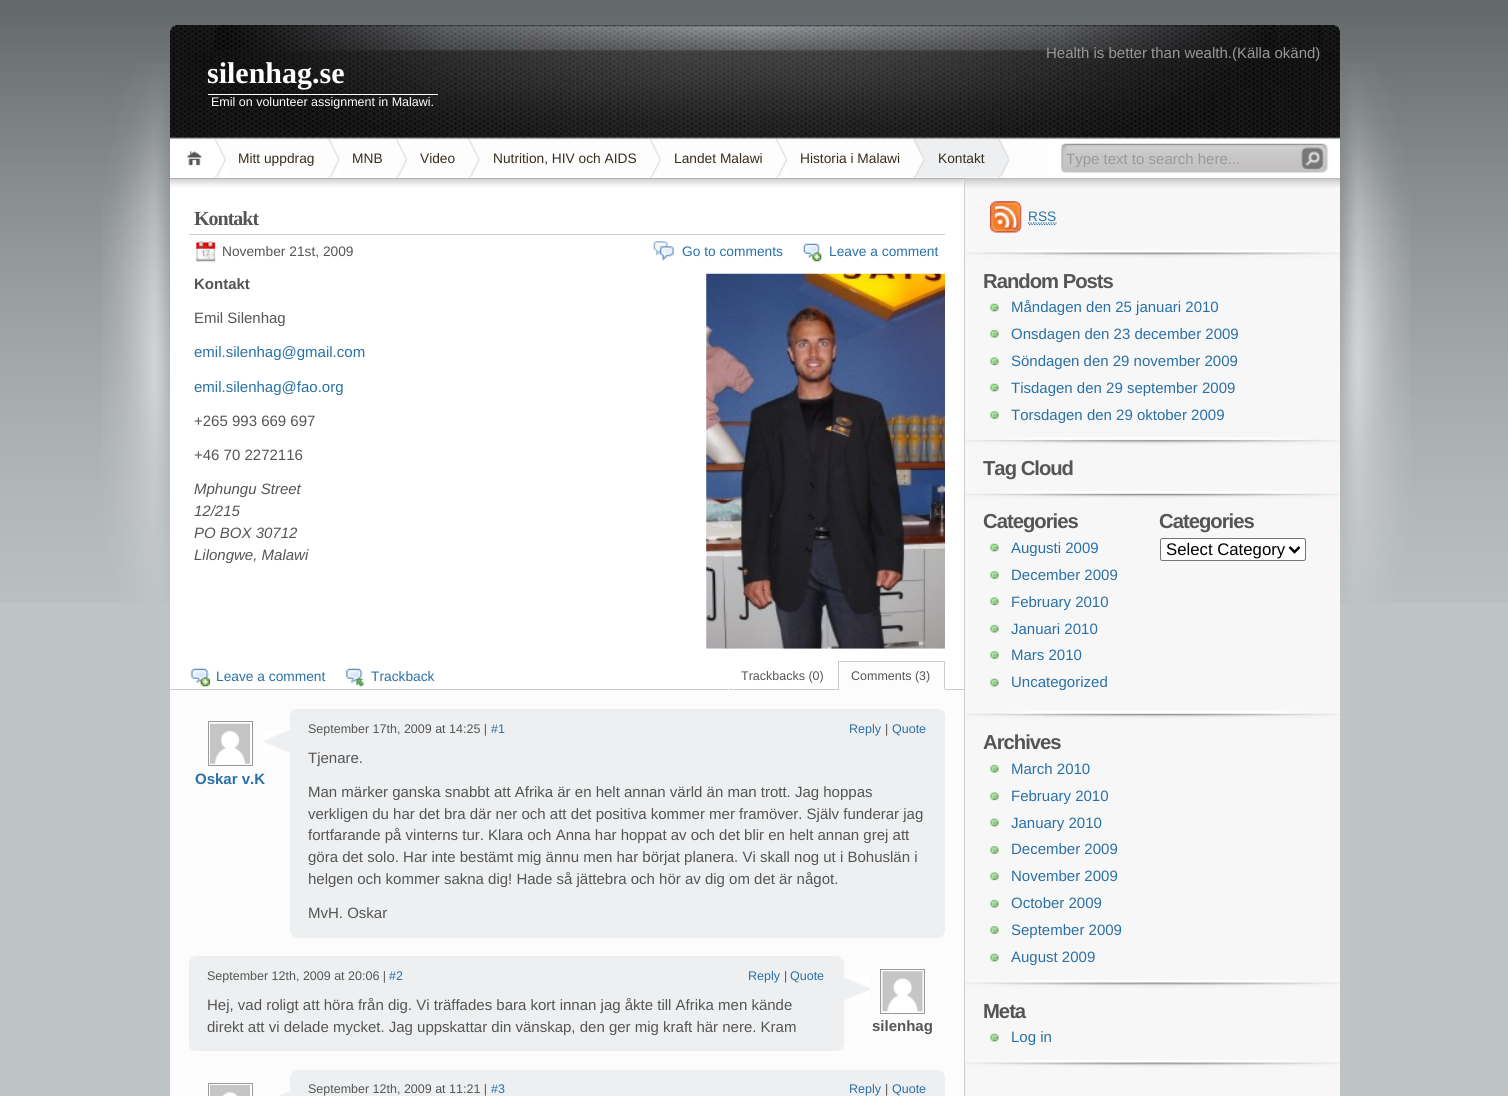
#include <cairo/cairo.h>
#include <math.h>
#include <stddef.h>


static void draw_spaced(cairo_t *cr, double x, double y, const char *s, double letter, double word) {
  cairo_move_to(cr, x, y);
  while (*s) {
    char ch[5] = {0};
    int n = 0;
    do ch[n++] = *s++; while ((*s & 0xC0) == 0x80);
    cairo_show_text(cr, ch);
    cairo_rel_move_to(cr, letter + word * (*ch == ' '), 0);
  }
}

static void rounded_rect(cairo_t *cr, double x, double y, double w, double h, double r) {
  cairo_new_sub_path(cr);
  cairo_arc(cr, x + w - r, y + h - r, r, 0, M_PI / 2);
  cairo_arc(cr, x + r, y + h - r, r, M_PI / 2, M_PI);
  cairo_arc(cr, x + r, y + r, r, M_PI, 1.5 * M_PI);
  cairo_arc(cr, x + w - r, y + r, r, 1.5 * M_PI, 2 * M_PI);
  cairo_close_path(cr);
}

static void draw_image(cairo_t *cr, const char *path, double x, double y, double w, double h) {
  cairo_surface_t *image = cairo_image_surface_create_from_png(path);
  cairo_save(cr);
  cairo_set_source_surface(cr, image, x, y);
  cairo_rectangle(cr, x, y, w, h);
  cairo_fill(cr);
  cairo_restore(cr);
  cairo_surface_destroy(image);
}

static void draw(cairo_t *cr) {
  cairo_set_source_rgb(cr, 190 / 255.0, 195 / 255.0, 198 / 255.0);
  cairo_paint(cr);
  draw_image(cr, "images/1.png", 0, 0, 1508, 603);
  draw_image(cr, "images/2.png", 102, 63, 1309, 540);
  draw_image(cr, "images/3.png", 170, 25, 1170, 113);
  cairo_set_source_rgb(cr, 166 / 255.0, 166 / 255.0, 166 / 255.0);
  cairo_rectangle(cr, 170, 138, 1170, 1);
  cairo_fill(cr);
  cairo_set_source_rgb(cr, 1, 1, 1);
  cairo_rectangle(cr, 208, 94, 230, 1);
  cairo_fill(cr);
  cairo_rectangle(cr, 170, 139, 1170, 39);
  cairo_fill(cr);
  cairo_set_source_rgb(cr, 166 / 255.0, 166 / 255.0, 166 / 255.0);
  cairo_rectangle(cr, 170, 178, 1170, 1);
  cairo_fill(cr);
  draw_image(cr, "images/4.png", 170, 139, 54, 27);
  draw_image(cr, "images/5.png", 215, 139, 125, 39);
  draw_image(cr, "images/6.png", 328, 139, 80, 39);
  draw_image(cr, "images/7.png", 396, 139, 84, 39);
  draw_image(cr, "images/8.png", 468, 139, 194, 39);
  draw_image(cr, "images/9.png", 650, 139, 138, 39);
  draw_image(cr, "images/10.png", 776, 139, 149, 39);
  draw_image(cr, "images/11.png", 912, 139, 98, 39);
  draw_image(cr, "images/12.png", 998, 139, 50, 39);
  draw_image(cr, "images/13.png", 1061, 143, 267, 30);
  draw_image(cr, "images/14.png", 963, 178, 377, 918);
  cairo_set_source_rgb(cr, 1, 1, 1);
  cairo_rectangle(cr, 170, 179, 794, 510);
  cairo_fill(cr);
  draw_image(cr, "images/15.png", 170, 178, 794, 9);
  cairo_set_source_rgb(cr, 204 / 255.0, 204 / 255.0, 204 / 255.0);
  cairo_rectangle(cr, 189, 234, 756, 1);
  cairo_fill(cr);
  draw_image(cr, "images/16.png", 196, 241, 20, 21);
  draw_image(cr, "images/17.png", 653, 241, 21, 20);
  draw_image(cr, "images/18.png", 802, 243, 20, 19);
  draw_image(cr, "images/19.png", 706, 273, 239, 376);
  draw_image(cr, "images/20.png", 190, 668, 20, 19);
  draw_image(cr, "images/21.png", 345, 668, 19, 19);
  cairo_rectangle(cr, 170, 689, 794, 1);
  cairo_fill(cr);
  cairo_set_source_rgb(cr, 1, 1, 1);
  cairo_rectangle(cr, 836, 689, 1, 1);
  cairo_fill(cr);
  cairo_set_source_rgb(cr, 204 / 255.0, 204 / 255.0, 204 / 255.0);
  cairo_rectangle(cr, 836, 689, 2, 1);
  cairo_fill(cr);
  cairo_set_source_rgb(cr, 1, 1, 1);
  cairo_rectangle(cr, 728, 689, 1, 1);
  cairo_fill(cr);
  cairo_set_source_rgb(cr, 252 / 255.0, 252 / 255.0, 252 / 255.0);
  cairo_rectangle(cr, 839, 662, 105, 27);
  cairo_fill(cr);
  cairo_set_source_rgb(cr, 204 / 255.0, 204 / 255.0, 204 / 255.0);
  cairo_rectangle(cr, 838, 661, 107, 1);
  cairo_fill(cr);
  cairo_rectangle(cr, 944, 661, 1, 29);
  cairo_fill(cr);
  cairo_set_source_rgb(cr, 252 / 255.0, 252 / 255.0, 252 / 255.0);
  cairo_rectangle(cr, 838, 689, 107, 1);
  cairo_fill(cr);
  cairo_set_source_rgb(cr, 204 / 255.0, 204 / 255.0, 204 / 255.0);
  cairo_rectangle(cr, 838, 661, 1, 29);
  cairo_fill(cr);
  cairo_set_source_rgb(cr, 252 / 255.0, 252 / 255.0, 252 / 255.0);
  cairo_rectangle(cr, 170, 690, 794, 406);
  cairo_fill(cr);
  draw_image(cr, "images/22.png", 264, 730, 26, 23);
  cairo_rectangle(cr, 208.5, 721.5, 44, 44);
  cairo_set_source_rgb(cr, 153 / 255.0, 153 / 255.0, 153 / 255.0);
  cairo_set_line_width(cr, 1);
  cairo_stroke(cr);
  draw_image(cr, "images/23.png", 210, 723, 40, 41);
  cairo_set_source_rgb(cr, 237 / 255.0, 239 / 255.0, 240 / 255.0);
  cairo_rectangle(cr, 290, 709, 655, 229);
  cairo_fill(cr);
  draw_image(cr, "images/24.png", 290, 709, 655, 5);
  draw_image(cr, "images/25.png", 290, 932, 655, 6);
  cairo_rectangle(cr, 189, 956, 655, 95);
  cairo_fill(cr);
  draw_image(cr, "images/26.png", 189, 956, 655, 5);
  draw_image(cr, "images/27.png", 189, 1046, 655, 5);
  draw_image(cr, "images/28.png", 844, 977, 26, 23);
  cairo_rectangle(cr, 880.5, 969.5, 44, 44);
  cairo_set_source_rgb(cr, 153 / 255.0, 153 / 255.0, 153 / 255.0);
  cairo_stroke(cr);
  draw_image(cr, "images/29.png", 882, 971, 41, 41);
  draw_image(cr, "images/30.png", 279, 1091, 11, 5);
  cairo_rectangle(cr, 208.5, 1083.5, 44, 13);
  cairo_stroke(cr);
  draw_image(cr, "images/31.png", 210, 1085, 40, 11);
  cairo_set_source_rgb(cr, 237 / 255.0, 239 / 255.0, 240 / 255.0);
  cairo_rectangle(cr, 290, 1070, 655, 26);
  cairo_fill(cr);
  draw_image(cr, "images/32.png", 290, 1070, 655, 5);
  cairo_set_source_rgb(cr, 247 / 255.0, 247 / 255.0, 247 / 255.0);
  cairo_rectangle(cr, 965, 188, 1, 880);
  cairo_fill(cr);
  draw_image(cr, "images/33.png", 965, 178, 375, 10);
  draw_image(cr, "images/34.png", 965, 250, 375, 8);
  draw_image(cr, "images/35.png", 990, 201, 32, 32);
  cairo_new_path(cr);
  cairo_move_to(cr, 1029, 224.5);
  cairo_line_to(cr, 1056, 224.5);
  cairo_move_to(cr, 1028, 223);
  cairo_line_to(cr, 1056.5, 223);
  cairo_set_source_rgb(cr, 41 / 255.0, 112 / 255.0, 166 / 255.0);
  cairo_set_line_width(cr, 1.2);
  cairo_set_dash(cr, (double[]){1.25, 1.25}, 2, 0);
  cairo_stroke(cr);
  draw_image(cr, "images/36.png", 965, 437, 375, 8);
  draw_image(cr, "images/37.png", 990, 303, 9, 9);
  draw_image(cr, "images/38.png", 990, 329, 9, 9);
  draw_image(cr, "images/39.png", 990, 357, 9, 9);
  draw_image(cr, "images/37.png", 990, 383, 9, 9);
  draw_image(cr, "images/40.png", 990, 411, 9, 8);
  draw_image(cr, "images/41.png", 965, 491, 375, 8);
  draw_image(cr, "images/41.png", 965, 711, 375, 8);
  draw_image(cr, "images/37.png", 990, 543, 9, 9);
  draw_image(cr, "images/40.png", 990, 571, 9, 8);
  draw_image(cr, "images/39.png", 990, 597, 9, 9);
  draw_image(cr, "images/38.png", 990, 624, 9, 9);
  draw_image(cr, "images/40.png", 990, 651, 9, 8);
  draw_image(cr, "images/37.png", 990, 678, 9, 9);
  cairo_set_source_rgb(cr, 1, 1, 1);
  rounded_rect(cr, 1160.5, 538.5, 145, 22, 2);
  cairo_fill_preserve(cr);
  cairo_set_source_rgb(cr, 118 / 255.0, 118 / 255.0, 118 / 255.0);
  cairo_set_line_width(cr, 1);
  cairo_set_dash(cr, NULL, 0, 0);
  cairo_stroke(cr);
  cairo_new_path(cr);
  cairo_move_to(cr, 1289.5, 547);
  cairo_line_to(cr, 1294.5, 552);
  cairo_line_to(cr, 1299.5, 547);
  cairo_set_source_rgb(cr, 0, 0, 0);
  cairo_set_line_width(cr, 2.5);
  cairo_stroke(cr);
  draw_image(cr, "images/34.png", 965, 980, 375, 8);
  draw_image(cr, "images/38.png", 990, 764, 9, 9);
  draw_image(cr, "images/39.png", 990, 792, 9, 9);
  draw_image(cr, "images/37.png", 990, 818, 9, 9);
  draw_image(cr, "images/40.png", 990, 846, 9, 8);
  draw_image(cr, "images/39.png", 990, 872, 9, 9);
  draw_image(cr, "images/38.png", 990, 899, 9, 9);
  draw_image(cr, "images/40.png", 990, 926, 9, 8);
  draw_image(cr, "images/37.png", 990, 953, 9, 9);
  draw_image(cr, "images/42.png", 965, 1060, 375, 7);
  draw_image(cr, "images/37.png", 990, 1033, 9, 9);
  cairo_select_font_face(cr, "Liberation Sans", CAIRO_FONT_SLANT_NORMAL, CAIRO_FONT_WEIGHT_NORMAL);
  cairo_set_font_size(cr, 15);
  cairo_set_source_rgb(cr, 153 / 255.0, 153 / 255.0, 153 / 255.0);
  cairo_move_to(cr, 1046, 58);
  cairo_show_text(cr, "Health is better than wealth.(Källa okänd)");
  cairo_select_font_face(cr, "Liberation Serif", CAIRO_FONT_SLANT_NORMAL, CAIRO_FONT_WEIGHT_BOLD);
  cairo_set_font_size(cr, 30);
  cairo_set_source_rgb(cr, 1, 1, 1);
  cairo_move_to(cr, 207, 83);
  cairo_show_text(cr, "silenhag.se");
  cairo_select_font_face(cr, "Liberation Sans", CAIRO_FONT_SLANT_NORMAL, CAIRO_FONT_WEIGHT_NORMAL);
  cairo_set_font_size(cr, 12.5);
  cairo_move_to(cr, 211, 106);
  cairo_show_text(cr, "Emil on volunteer assignment in Malawi.");
  cairo_set_font_size(cr, 13.75);
  cairo_set_source_rgb(cr, 56 / 255.0, 46 / 255.0, 31 / 255.0);
  cairo_move_to(cr, 238, 163);
  cairo_show_text(cr, "Mitt uppdrag");
  cairo_move_to(cr, 352, 163);
  cairo_show_text(cr, "MNB");
  cairo_move_to(cr, 420, 163);
  cairo_show_text(cr, "Video");
  cairo_move_to(cr, 493, 163);
  cairo_show_text(cr, "Nutrition, HIV och AIDS");
  cairo_move_to(cr, 674, 163);
  cairo_show_text(cr, "Landet Malawi");
  cairo_move_to(cr, 800, 163);
  cairo_show_text(cr, "Historia i Malawi");
  cairo_move_to(cr, 938, 163);
  cairo_show_text(cr, "Kontakt");
  cairo_set_font_size(cr, 15);
  cairo_set_source_rgb(cr, 153 / 255.0, 153 / 255.0, 153 / 255.0);
  cairo_move_to(cr, 1066, 164);
  cairo_show_text(cr, "Type text to search here...");
  cairo_select_font_face(cr, "Liberation Serif", CAIRO_FONT_SLANT_NORMAL, CAIRO_FONT_WEIGHT_BOLD);
  cairo_set_font_size(cr, 20);
  cairo_set_source_rgb(cr, 85 / 255.0, 85 / 255.0, 85 / 255.0);
  draw_spaced(cr, 194, 225, "Kontakt", -1, 0);
  cairo_select_font_face(cr, "Liberation Sans", CAIRO_FONT_SLANT_NORMAL, CAIRO_FONT_WEIGHT_NORMAL);
  cairo_set_font_size(cr, 13.75);
  cairo_move_to(cr, 222, 256);
  cairo_show_text(cr, "November 21st, 2009");
  cairo_set_source_rgb(cr, 41 / 255.0, 112 / 255.0, 166 / 255.0);
  cairo_move_to(cr, 682, 256);
  cairo_show_text(cr, "Go to comments");
  cairo_move_to(cr, 829, 256);
  cairo_show_text(cr, "Leave a comment");
  cairo_select_font_face(cr, "Liberation Sans", CAIRO_FONT_SLANT_NORMAL, CAIRO_FONT_WEIGHT_BOLD);
  cairo_set_font_size(cr, 15);
  cairo_set_source_rgb(cr, 85 / 255.0, 85 / 255.0, 85 / 255.0);
  cairo_move_to(cr, 194, 289);
  cairo_show_text(cr, "Kontakt");
  cairo_select_font_face(cr, "Liberation Sans", CAIRO_FONT_SLANT_NORMAL, CAIRO_FONT_WEIGHT_NORMAL);
  cairo_move_to(cr, 194, 323);
  cairo_show_text(cr, "Emil Silenhag");
  cairo_set_source_rgb(cr, 41 / 255.0, 112 / 255.0, 166 / 255.0);
  cairo_move_to(cr, 194, 357);
  cairo_show_text(cr, "emil.silenhag@gmail.com");
  cairo_move_to(cr, 194, 392);
  cairo_show_text(cr, "emil.silenhag@fao.org");
  cairo_set_source_rgb(cr, 85 / 255.0, 85 / 255.0, 85 / 255.0);
  cairo_move_to(cr, 194, 426);
  cairo_show_text(cr, "+265 993 669 697");
  cairo_move_to(cr, 194, 460);
  cairo_show_text(cr, "+46 70 2272116");
  cairo_select_font_face(cr, "Liberation Sans", CAIRO_FONT_SLANT_ITALIC, CAIRO_FONT_WEIGHT_NORMAL);
  cairo_move_to(cr, 194, 494);
  cairo_show_text(cr, "Mphungu Street");
  cairo_move_to(cr, 194, 516);
  cairo_show_text(cr, "12/215");
  cairo_move_to(cr, 194, 538);
  cairo_show_text(cr, "PO BOX 30712");
  cairo_move_to(cr, 194, 560);
  cairo_show_text(cr, "Lilongwe, Malawi");
  cairo_select_font_face(cr, "Liberation Sans", CAIRO_FONT_SLANT_NORMAL, CAIRO_FONT_WEIGHT_NORMAL);
  cairo_set_font_size(cr, 13.75);
  cairo_set_source_rgb(cr, 41 / 255.0, 112 / 255.0, 166 / 255.0);
  cairo_move_to(cr, 216, 681);
  cairo_show_text(cr, "Leave a comment");
  cairo_move_to(cr, 371, 681);
  cairo_show_text(cr, "Trackback");
  cairo_set_font_size(cr, 12.5);
  cairo_set_source_rgb(cr, 85 / 255.0, 85 / 255.0, 85 / 255.0);
  cairo_move_to(cr, 741, 680);
  cairo_show_text(cr, "Trackbacks (0)");
  cairo_move_to(cr, 851, 680);
  cairo_show_text(cr, "Comments (3)");
  cairo_select_font_face(cr, "Liberation Sans", CAIRO_FONT_SLANT_NORMAL, CAIRO_FONT_WEIGHT_BOLD);
  cairo_set_font_size(cr, 15);
  cairo_set_source_rgb(cr, 41 / 255.0, 112 / 255.0, 166 / 255.0);
  cairo_move_to(cr, 195, 784);
  cairo_show_text(cr, "Oskar v.K");
  cairo_select_font_face(cr, "Liberation Sans", CAIRO_FONT_SLANT_NORMAL, CAIRO_FONT_WEIGHT_NORMAL);
  cairo_set_font_size(cr, 12.5);
  cairo_set_source_rgb(cr, 85 / 255.0, 85 / 255.0, 85 / 255.0);
  cairo_move_to(cr, 308, 733);
  cairo_show_text(cr, "September 17th, 2009 at 14:25 |");
  cairo_set_source_rgb(cr, 41 / 255.0, 112 / 255.0, 166 / 255.0);
  cairo_move_to(cr, 491, 733);
  cairo_show_text(cr, "#1");
  cairo_move_to(cr, 849, 733);
  cairo_show_text(cr, "Reply");
  cairo_set_source_rgb(cr, 85 / 255.0, 85 / 255.0, 85 / 255.0);
  cairo_move_to(cr, 885, 733);
  cairo_show_text(cr, "|");
  cairo_set_source_rgb(cr, 41 / 255.0, 112 / 255.0, 166 / 255.0);
  cairo_move_to(cr, 892, 733);
  cairo_show_text(cr, "Quote");
  cairo_set_font_size(cr, 15);
  cairo_set_source_rgb(cr, 85 / 255.0, 85 / 255.0, 85 / 255.0);
  cairo_move_to(cr, 308, 763);
  cairo_show_text(cr, "Tjenare.");
  cairo_move_to(cr, 308, 797);
  cairo_show_text(cr, "Man märker ganska snabbt att Afrika är en helt annan värld än man trott. Jag hoppas");
  cairo_move_to(cr, 308, 819);
  cairo_show_text(cr, "verkligen du har det bra där ner och att det positiva kommer mer framöver. Själv funderar jag");
  cairo_move_to(cr, 308, 840);
  cairo_show_text(cr, "fortfarande på vinterns tur. Klara och Anna har hoppat av och det blir en helt annan grej att");
  cairo_move_to(cr, 308, 862);
  cairo_show_text(cr, "göra det solo. Har inte bestämt mig ännu men har börjat planera. Vi skall nog ut i Bohuslän i");
  cairo_move_to(cr, 308, 884);
  cairo_show_text(cr, "helgen och kommer sakna dig! Hade så jättebra och hör av dig om det är något.");
  cairo_move_to(cr, 308, 918);
  cairo_show_text(cr, "MvH. Oskar");
  cairo_set_font_size(cr, 12.5);
  cairo_move_to(cr, 207, 980);
  cairo_show_text(cr, "September 12th, 2009 at 20:06 |");
  cairo_set_source_rgb(cr, 41 / 255.0, 112 / 255.0, 166 / 255.0);
  cairo_move_to(cr, 389, 980);
  cairo_show_text(cr, "#2");
  cairo_move_to(cr, 748, 980);
  cairo_show_text(cr, "Reply");
  cairo_set_source_rgb(cr, 85 / 255.0, 85 / 255.0, 85 / 255.0);
  cairo_move_to(cr, 784, 980);
  cairo_show_text(cr, "|");
  cairo_set_source_rgb(cr, 41 / 255.0, 112 / 255.0, 166 / 255.0);
  cairo_move_to(cr, 790, 980);
  cairo_show_text(cr, "Quote");
  cairo_set_font_size(cr, 15);
  cairo_set_source_rgb(cr, 85 / 255.0, 85 / 255.0, 85 / 255.0);
  cairo_move_to(cr, 207, 1010);
  cairo_show_text(cr, "Hej, vad roligt att höra från dig. Vi träffades bara kort innan jag åkte till Afrika men kände");
  cairo_move_to(cr, 207, 1032);
  cairo_show_text(cr, "direkt att vi delade mycket. Jag uppskattar din vänskap, den ger mig kraft här nere. Kram");
  cairo_select_font_face(cr, "Liberation Sans", CAIRO_FONT_SLANT_NORMAL, CAIRO_FONT_WEIGHT_BOLD);
  cairo_move_to(cr, 872, 1031);
  cairo_show_text(cr, "silenhag");
  cairo_select_font_face(cr, "Liberation Sans", CAIRO_FONT_SLANT_NORMAL, CAIRO_FONT_WEIGHT_NORMAL);
  cairo_set_font_size(cr, 12.5);
  cairo_move_to(cr, 308, 1093);
  cairo_show_text(cr, "September 12th, 2009 at 11:21 |");
  cairo_set_source_rgb(cr, 41 / 255.0, 112 / 255.0, 166 / 255.0);
  cairo_move_to(cr, 491, 1093);
  cairo_show_text(cr, "#3");
  cairo_move_to(cr, 849, 1093);
  cairo_show_text(cr, "Reply");
  cairo_set_source_rgb(cr, 85 / 255.0, 85 / 255.0, 85 / 255.0);
  cairo_move_to(cr, 885, 1093);
  cairo_show_text(cr, "|");
  cairo_set_source_rgb(cr, 41 / 255.0, 112 / 255.0, 166 / 255.0);
  cairo_move_to(cr, 892, 1093);
  cairo_show_text(cr, "Quote");
  cairo_set_font_size(cr, 13.75);
  cairo_move_to(cr, 1028, 221);
  cairo_show_text(cr, "RSS");
  cairo_select_font_face(cr, "Liberation Sans", CAIRO_FONT_SLANT_NORMAL, CAIRO_FONT_WEIGHT_BOLD);
  cairo_set_font_size(cr, 20.25);
  cairo_set_source_rgb(cr, 85 / 255.0, 85 / 255.0, 85 / 255.0);
  draw_spaced(cr, 983, 288, "Random Posts", -1, 0);
  cairo_select_font_face(cr, "Liberation Sans", CAIRO_FONT_SLANT_NORMAL, CAIRO_FONT_WEIGHT_NORMAL);
  cairo_set_font_size(cr, 15);
  cairo_set_source_rgb(cr, 41 / 255.0, 112 / 255.0, 166 / 255.0);
  cairo_move_to(cr, 1011, 312);
  cairo_show_text(cr, "Måndagen den 25 januari 2010");
  cairo_move_to(cr, 1011, 339);
  cairo_show_text(cr, "Onsdagen den 23 december 2009");
  cairo_move_to(cr, 1011, 366);
  cairo_show_text(cr, "Söndagen den 29 november 2009");
  cairo_move_to(cr, 1011, 393);
  cairo_show_text(cr, "Tisdagen den 29 september 2009");
  cairo_move_to(cr, 1011, 420);
  cairo_show_text(cr, "Torsdagen den 29 oktober 2009");
  cairo_select_font_face(cr, "Liberation Sans", CAIRO_FONT_SLANT_NORMAL, CAIRO_FONT_WEIGHT_BOLD);
  cairo_set_font_size(cr, 20.25);
  cairo_set_source_rgb(cr, 85 / 255.0, 85 / 255.0, 85 / 255.0);
  draw_spaced(cr, 983, 475, "Tag Cloud", -1, 0);
  draw_spaced(cr, 983, 528, "Categories", -1, 0);
  cairo_select_font_face(cr, "Liberation Sans", CAIRO_FONT_SLANT_NORMAL, CAIRO_FONT_WEIGHT_NORMAL);
  cairo_set_font_size(cr, 15);
  cairo_set_source_rgb(cr, 41 / 255.0, 112 / 255.0, 166 / 255.0);
  cairo_move_to(cr, 1011, 553);
  cairo_show_text(cr, "Augusti 2009");
  cairo_move_to(cr, 1011, 580);
  cairo_show_text(cr, "December 2009");
  cairo_move_to(cr, 1011, 607);
  cairo_show_text(cr, "February 2010");
  cairo_move_to(cr, 1011, 634);
  cairo_show_text(cr, "Januari 2010");
  cairo_move_to(cr, 1011, 660);
  cairo_show_text(cr, "Mars 2010");
  cairo_move_to(cr, 1011, 687);
  cairo_show_text(cr, "Uncategorized");
  cairo_select_font_face(cr, "Liberation Sans", CAIRO_FONT_SLANT_NORMAL, CAIRO_FONT_WEIGHT_BOLD);
  cairo_set_font_size(cr, 20.25);
  cairo_set_source_rgb(cr, 85 / 255.0, 85 / 255.0, 85 / 255.0);
  draw_spaced(cr, 1159, 528, "Categories", -1, 0);
  cairo_select_font_face(cr, "Liberation Sans", CAIRO_FONT_SLANT_NORMAL, CAIRO_FONT_WEIGHT_NORMAL);
  cairo_set_font_size(cr, 16.75);
  cairo_set_source_rgb(cr, 0, 0, 0);
  cairo_move_to(cr, 1166, 555);
  cairo_show_text(cr, "Select Category");
  cairo_select_font_face(cr, "Liberation Sans", CAIRO_FONT_SLANT_NORMAL, CAIRO_FONT_WEIGHT_BOLD);
  cairo_set_font_size(cr, 20.25);
  cairo_set_source_rgb(cr, 85 / 255.0, 85 / 255.0, 85 / 255.0);
  draw_spaced(cr, 983, 749, "Archives", -1, 0);
  cairo_select_font_face(cr, "Liberation Sans", CAIRO_FONT_SLANT_NORMAL, CAIRO_FONT_WEIGHT_NORMAL);
  cairo_set_font_size(cr, 15);
  cairo_set_source_rgb(cr, 41 / 255.0, 112 / 255.0, 166 / 255.0);
  cairo_move_to(cr, 1011, 774);
  cairo_show_text(cr, "March 2010");
  cairo_move_to(cr, 1011, 801);
  cairo_show_text(cr, "February 2010");
  cairo_move_to(cr, 1011, 828);
  cairo_show_text(cr, "January 2010");
  cairo_move_to(cr, 1011, 854);
  cairo_show_text(cr, "December 2009");
  cairo_move_to(cr, 1011, 881);
  cairo_show_text(cr, "November 2009");
  cairo_move_to(cr, 1011, 908);
  cairo_show_text(cr, "October 2009");
  cairo_move_to(cr, 1011, 935);
  cairo_show_text(cr, "September 2009");
  cairo_move_to(cr, 1011, 962);
  cairo_show_text(cr, "August 2009");
  cairo_select_font_face(cr, "Liberation Sans", CAIRO_FONT_SLANT_NORMAL, CAIRO_FONT_WEIGHT_BOLD);
  cairo_set_font_size(cr, 20.25);
  cairo_set_source_rgb(cr, 85 / 255.0, 85 / 255.0, 85 / 255.0);
  draw_spaced(cr, 983, 1018, "Meta", -1, 0);
  cairo_select_font_face(cr, "Liberation Sans", CAIRO_FONT_SLANT_NORMAL, CAIRO_FONT_WEIGHT_NORMAL);
  cairo_set_font_size(cr, 15);
  cairo_set_source_rgb(cr, 41 / 255.0, 112 / 255.0, 166 / 255.0);
  cairo_move_to(cr, 1011, 1042);
  cairo_show_text(cr, "Log in");
}

int main(void) {
  cairo_surface_t *surface = cairo_image_surface_create(CAIRO_FORMAT_RGB24, 1508, 1096);
  cairo_t *cr = cairo_create(surface);
  cairo_font_options_t *options = cairo_font_options_create();
  cairo_font_options_set_hint_metrics(options, CAIRO_HINT_METRICS_OFF);
  cairo_font_options_set_hint_style(options, CAIRO_HINT_STYLE_NONE);
  cairo_set_font_options(cr, options);
  cairo_set_miter_limit(cr, 4);
  draw(cr);
  cairo_surface_write_to_png(surface, "out.png");
  cairo_font_options_destroy(options);
  cairo_destroy(cr);
  cairo_surface_destroy(surface);
  return 0;
}
